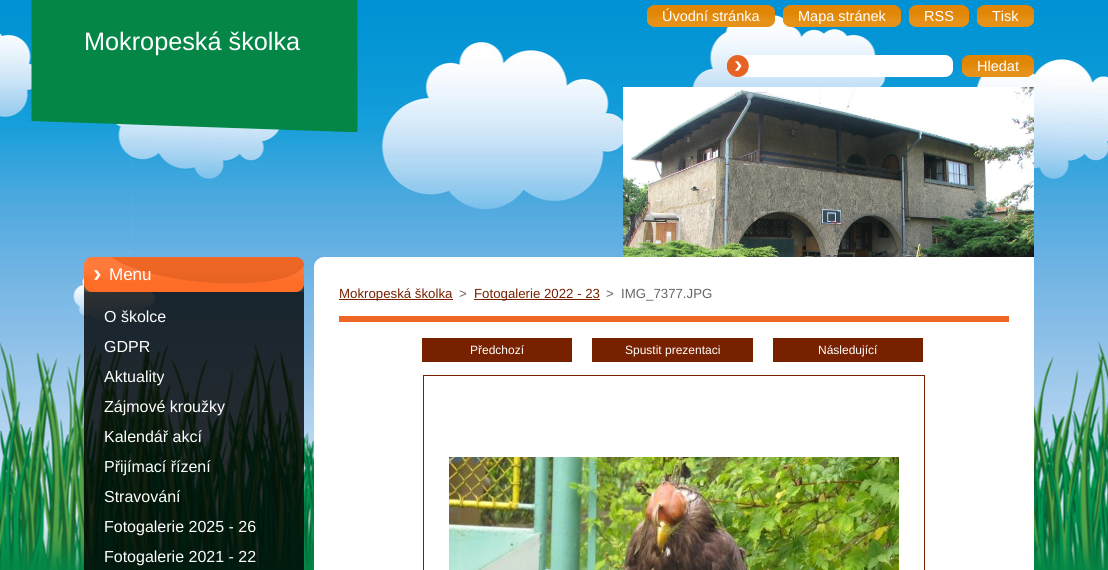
#include <cairo/cairo.h>
#include <math.h>
#include <stddef.h>


static void draw_image(cairo_t *cr, const char *path, double x, double y, double w, double h) {
  cairo_surface_t *image = cairo_image_surface_create_from_png(path);
  cairo_save(cr);
  cairo_set_source_surface(cr, image, x, y);
  cairo_rectangle(cr, x, y, w, h);
  cairo_fill(cr);
  cairo_restore(cr);
  cairo_surface_destroy(image);
}

static void draw(cairo_t *cr) {
  cairo_set_source_rgb(cr, 1, 1, 1);
  cairo_paint(cr);
  draw_image(cr, "images/1.png", 0, 0, 1108, 570);
  draw_image(cr, "images/2.png", 31, 0, 327, 132);
  draw_image(cr, "images/3.png", 647, 5, 15, 22);
  draw_image(cr, "images/4.png", 662, 5, 98, 22);
  draw_image(cr, "images/5.png", 760, 5, 15, 22);
  draw_image(cr, "images/6.png", 783, 5, 15, 22);
  draw_image(cr, "images/7.png", 798, 5, 88, 22);
  draw_image(cr, "images/3.png", 909, 5, 15, 22);
  draw_image(cr, "images/9.png", 924, 5, 30, 22);
  draw_image(cr, "images/8.png", 954, 5, 15, 22);
  draw_image(cr, "images/3.png", 977, 5, 15, 22);
  draw_image(cr, "images/10.png", 992, 5, 27, 22);
  draw_image(cr, "images/8.png", 1019, 5, 15, 22);
  draw_image(cr, "images/11.png", 727, 55, 226, 22);
  draw_image(cr, "images/12.png", 962, 55, 15, 22);
  draw_image(cr, "images/13.png", 977, 55, 42, 22);
  draw_image(cr, "images/14.png", 1019, 55, 15, 22);
  draw_image(cr, "images/15.png", 623, 87, 411, 170);
  cairo_set_source_rgb(cr, 1, 1, 1);
  cairo_rectangle(cr, 314, 257, 720, 313);
  cairo_fill(cr);
  draw_image(cr, "images/16.png", 84, 257, 220, 35);
  cairo_set_source_rgba(cr, 0, 0, 0, 0.8);
  cairo_rectangle(cr, 84, 292, 220, 278);
  cairo_fill(cr);
  draw_image(cr, "images/17.png", 314, 257, 9, 10);
  cairo_set_source_rgb(cr, 119 / 255.0, 33 / 255.0, 1 / 255.0);
  cairo_rectangle(cr, 339, 299, 114, 1);
  cairo_fill(cr);
  cairo_rectangle(cr, 474, 299, 126, 1);
  cairo_fill(cr);
  cairo_set_source_rgb(cr, 238 / 255.0, 102 / 255.0, 37 / 255.0);
  cairo_rectangle(cr, 339, 316, 670, 6);
  cairo_fill(cr);
  cairo_set_source_rgb(cr, 119 / 255.0, 33 / 255.0, 1 / 255.0);
  cairo_rectangle(cr, 422, 338, 150, 24);
  cairo_fill(cr);
  cairo_rectangle(cr, 592, 338, 161, 24);
  cairo_fill(cr);
  cairo_rectangle(cr, 773, 338, 150, 24);
  cairo_fill(cr);
  cairo_rectangle(cr, 423.5, 375.5, 501, 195);
  cairo_set_line_width(cr, 1);
  cairo_stroke(cr);
  draw_image(cr, "images/18.png", 449, 457, 450, 113);
  cairo_select_font_face(cr, "Liberation Sans", CAIRO_FONT_SLANT_NORMAL, CAIRO_FONT_WEIGHT_NORMAL);
  cairo_set_font_size(cr, 14.5);
  cairo_set_source_rgb(cr, 1, 1, 1);
  cairo_move_to(cr, 662, 21);
  cairo_show_text(cr, "Úvodní stránka");
  cairo_move_to(cr, 798, 21);
  cairo_show_text(cr, "Mapa stránek");
  draw_image(cr, "images/8.png", 886, 5, 15, 22);
  cairo_move_to(cr, 924, 21);
  cairo_show_text(cr, "RSS");
  cairo_move_to(cr, 992, 21);
  cairo_show_text(cr, "Tisk");
  cairo_set_font_size(cr, 25.25);
  cairo_move_to(cr, 84, 50);
  cairo_show_text(cr, "Mokropeská školka");
  cairo_set_font_size(cr, 14.5);
  cairo_move_to(cr, 977, 71);
  cairo_show_text(cr, "Hledat");
  cairo_set_font_size(cr, 17);
  cairo_move_to(cr, 109, 280);
  cairo_show_text(cr, "Menu");
  cairo_set_font_size(cr, 16);
  cairo_move_to(cr, 104, 322);
  cairo_show_text(cr, "O školce");
  cairo_move_to(cr, 104, 352);
  cairo_show_text(cr, "GDPR");
  cairo_move_to(cr, 104, 382);
  cairo_show_text(cr, "Aktuality");
  cairo_move_to(cr, 104, 412);
  cairo_show_text(cr, "Zájmové kroužky");
  cairo_move_to(cr, 104, 442);
  cairo_show_text(cr, "Kalendář akcí");
  cairo_move_to(cr, 104, 472);
  cairo_show_text(cr, "Přijímací řízení");
  cairo_move_to(cr, 104, 502);
  cairo_show_text(cr, "Stravování");
  cairo_move_to(cr, 104, 532);
  cairo_show_text(cr, "Fotogalerie 2025 - 26");
  cairo_move_to(cr, 104, 562);
  cairo_show_text(cr, "Fotogalerie 2021 - 22");
  cairo_set_font_size(cr, 13.25);
  cairo_set_source_rgb(cr, 119 / 255.0, 33 / 255.0, 1 / 255.0);
  cairo_move_to(cr, 339, 298);
  cairo_show_text(cr, "Mokropeská školka");
  cairo_set_source_rgb(cr, 102 / 255.0, 102 / 255.0, 102 / 255.0);
  cairo_move_to(cr, 459, 298);
  cairo_show_text(cr, ">");
  cairo_set_source_rgb(cr, 119 / 255.0, 33 / 255.0, 1 / 255.0);
  cairo_move_to(cr, 474, 298);
  cairo_show_text(cr, "Fotogalerie 2022 - 23");
  cairo_set_source_rgb(cr, 102 / 255.0, 102 / 255.0, 102 / 255.0);
  cairo_move_to(cr, 606, 298);
  cairo_show_text(cr, ">");
  cairo_move_to(cr, 621, 298);
  cairo_show_text(cr, "IMG_7377.JPG");
  cairo_set_font_size(cr, 12);
  cairo_set_source_rgb(cr, 1, 1, 1);
  cairo_move_to(cr, 470, 354);
  cairo_show_text(cr, "Předchozí");
  cairo_move_to(cr, 625, 354);
  cairo_show_text(cr, "Spustit prezentaci");
  cairo_move_to(cr, 818, 354);
  cairo_show_text(cr, "Následující");
}

int main(void) {
  cairo_surface_t *surface = cairo_image_surface_create(CAIRO_FORMAT_RGB24, 1108, 570);
  cairo_t *cr = cairo_create(surface);
  cairo_font_options_t *options = cairo_font_options_create();
  cairo_font_options_set_hint_metrics(options, CAIRO_HINT_METRICS_OFF);
  cairo_font_options_set_hint_style(options, CAIRO_HINT_STYLE_NONE);
  cairo_set_font_options(cr, options);
  cairo_set_miter_limit(cr, 4);
  draw(cr);
  cairo_surface_write_to_png(surface, "out.png");
  cairo_font_options_destroy(options);
  cairo_destroy(cr);
  cairo_surface_destroy(surface);
  return 0;
}
